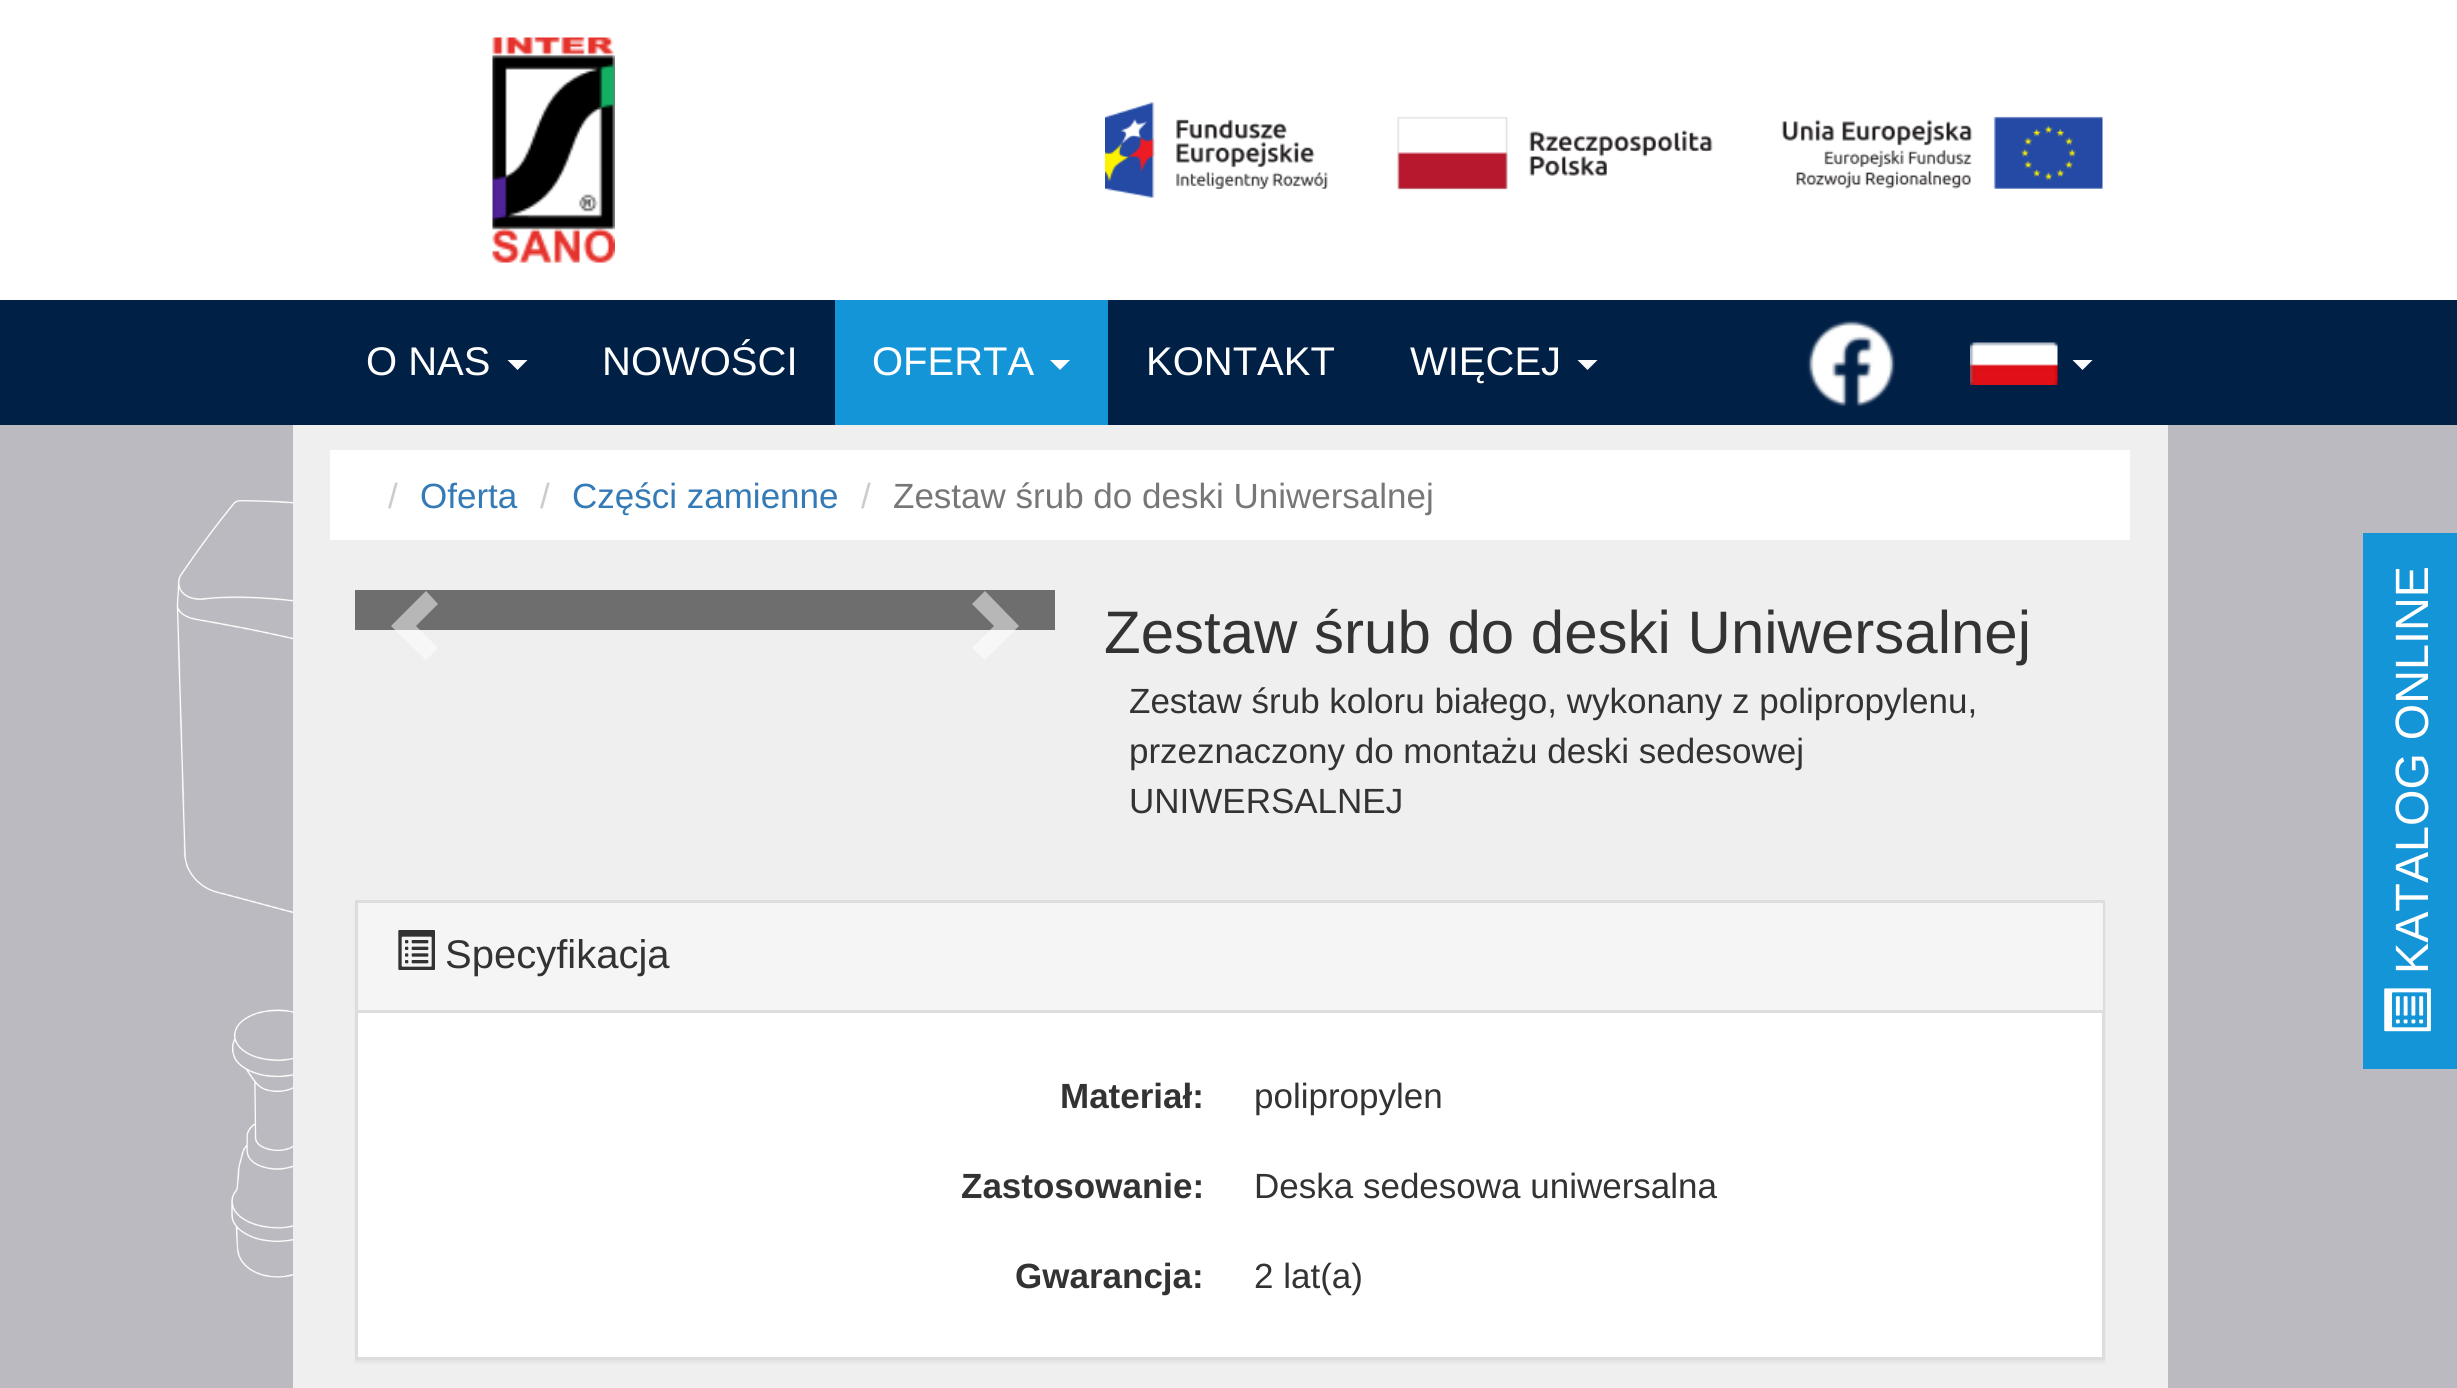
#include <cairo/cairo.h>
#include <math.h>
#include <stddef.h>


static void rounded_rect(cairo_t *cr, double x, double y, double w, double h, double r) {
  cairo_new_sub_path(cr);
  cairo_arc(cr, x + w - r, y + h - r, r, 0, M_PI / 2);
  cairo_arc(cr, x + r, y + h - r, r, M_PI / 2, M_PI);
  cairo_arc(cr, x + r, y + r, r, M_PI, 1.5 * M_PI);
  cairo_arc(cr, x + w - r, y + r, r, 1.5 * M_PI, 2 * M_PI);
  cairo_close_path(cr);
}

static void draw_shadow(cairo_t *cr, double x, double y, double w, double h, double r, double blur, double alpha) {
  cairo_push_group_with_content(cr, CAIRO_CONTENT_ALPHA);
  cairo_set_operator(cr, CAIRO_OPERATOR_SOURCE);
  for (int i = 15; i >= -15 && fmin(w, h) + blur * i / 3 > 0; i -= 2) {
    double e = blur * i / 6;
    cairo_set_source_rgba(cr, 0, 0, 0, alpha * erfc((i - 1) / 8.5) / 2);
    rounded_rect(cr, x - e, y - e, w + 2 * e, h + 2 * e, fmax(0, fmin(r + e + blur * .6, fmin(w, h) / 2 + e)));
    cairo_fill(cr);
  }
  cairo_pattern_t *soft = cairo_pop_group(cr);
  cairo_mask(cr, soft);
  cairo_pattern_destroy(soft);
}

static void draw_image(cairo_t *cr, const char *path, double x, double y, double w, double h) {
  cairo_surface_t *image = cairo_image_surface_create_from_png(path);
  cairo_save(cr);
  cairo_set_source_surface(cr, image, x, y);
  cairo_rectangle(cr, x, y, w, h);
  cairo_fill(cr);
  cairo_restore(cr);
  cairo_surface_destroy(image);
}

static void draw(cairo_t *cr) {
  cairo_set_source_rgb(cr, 186 / 255.0, 186 / 255.0, 192 / 255.0);
  cairo_paint(cr);
  draw_image(cr, "images/1.png", 176, 500, 117, 778);
  cairo_set_source_rgb(cr, 1, 1, 1);
  cairo_rectangle(cr, 0, 0, 2457, 300);
  cairo_fill(cr);
  draw_image(cr, "images/2.png", 492, 37, 123, 226);
  draw_image(cr, "images/3.png", 1105, 102, 998, 96);
  cairo_set_source_rgb(cr, 1 / 255.0, 32 / 255.0, 70 / 255.0);
  cairo_rectangle(cr, 0, 300, 2457, 125);
  cairo_fill(cr);
  cairo_set_source_rgb(cr, 1, 1, 1);
  cairo_new_path(cr);
  cairo_move_to(cr, 507.5, 360);
  cairo_line_to(cr, 527.5, 360);
  cairo_line_to(cr, 517.5, 370);
  cairo_close_path(cr);
  cairo_fill(cr);
  cairo_set_source_rgb(cr, 20 / 255.0, 149 / 255.0, 215 / 255.0);
  cairo_rectangle(cr, 835, 300, 273, 125);
  cairo_fill(cr);
  cairo_set_source_rgb(cr, 1, 1, 1);
  cairo_new_path(cr);
  cairo_move_to(cr, 1050, 360);
  cairo_line_to(cr, 1070, 360);
  cairo_line_to(cr, 1060, 370);
  cairo_close_path(cr);
  cairo_fill(cr);
  cairo_new_path(cr);
  cairo_move_to(cr, 1577.5, 360);
  cairo_line_to(cr, 1597.5, 360);
  cairo_line_to(cr, 1587.5, 370);
  cairo_close_path(cr);
  cairo_fill(cr);
  draw_image(cr, "images/4.png", 1807, 320, 88, 87);
  draw_image(cr, "images/5.png", 1970, 342, 88, 43);
  cairo_new_path(cr);
  cairo_move_to(cr, 2072.5, 360);
  cairo_line_to(cr, 2092.5, 360);
  cairo_line_to(cr, 2082.5, 370);
  cairo_close_path(cr);
  cairo_fill(cr);
  cairo_set_source_rgb(cr, 239 / 255.0, 239 / 255.0, 239 / 255.0);
  cairo_rectangle(cr, 293, 425, 1875, 963);
  cairo_fill(cr);
  cairo_set_source_rgb(cr, 1, 1, 1);
  cairo_rectangle(cr, 330, 450, 1800, 90);
  cairo_fill(cr);
  cairo_set_source_rgb(cr, 110 / 255.0, 110 / 255.0, 110 / 255.0);
  cairo_rectangle(cr, 355, 590, 700, 40);
  cairo_fill(cr);
  cairo_set_source_rgba(cr, 1, 1, 1, 0.5);
  cairo_new_path(cr);
  cairo_move_to(cr, 438, 604);
  cairo_line_to(cr, 416, 626);
  cairo_line_to(cr, 438, 648);
  cairo_line_to(cr, 426, 660);
  cairo_line_to(cr, 391, 626);
  cairo_line_to(cr, 426, 591);
  cairo_close_path(cr);
  cairo_fill(cr);
  cairo_new_path(cr);
  cairo_move_to(cr, 1019, 626);
  cairo_line_to(cr, 985, 660);
  cairo_line_to(cr, 972, 648);
  cairo_line_to(cr, 994, 626);
  cairo_line_to(cr, 972, 604);
  cairo_line_to(cr, 985, 591);
  cairo_close_path(cr);
  cairo_fill(cr);
  cairo_set_source_rgb(cr, 0, 0, 0);
  draw_shadow(cr, 355, 903, 1750, 460, 0, 1, 0.05);
  cairo_set_source_rgb(cr, 1, 1, 1);
  cairo_rectangle(cr, 358, 1013, 1744, 344);
  cairo_fill(cr);
  cairo_rectangle(cr, 356.5, 901.5, 1747, 457);
  cairo_set_source_rgb(cr, 221 / 255.0, 221 / 255.0, 221 / 255.0);
  cairo_set_line_width(cr, 3);
  cairo_stroke(cr);
  cairo_set_source_rgb(cr, 245 / 255.0, 245 / 255.0, 245 / 255.0);
  cairo_rectangle(cr, 358, 903, 1745, 107);
  cairo_fill(cr);
  cairo_set_source_rgb(cr, 221 / 255.0, 221 / 255.0, 221 / 255.0);
  cairo_rectangle(cr, 358, 1010, 1745, 3);
  cairo_fill(cr);
  draw_image(cr, "images/6.png", 398, 930, 37, 40);
  cairo_set_source_rgb(cr, 20 / 255.0, 149 / 255.0, 215 / 255.0);
  cairo_rectangle(cr, 2363, 533, 94, 536);
  cairo_fill(cr);
  draw_image(cr, "images/7.png", 2384, 988, 47, 44);
  cairo_select_font_face(cr, "Liberation Sans", CAIRO_FONT_SLANT_NORMAL, CAIRO_FONT_WEIGHT_NORMAL);
  cairo_set_font_size(cr, 40);
  cairo_set_source_rgb(cr, 1, 1, 1);
  cairo_move_to(cr, 366, 375);
  cairo_show_text(cr, "O NAS");
  cairo_move_to(cr, 602, 375);
  cairo_show_text(cr, "NOWOŚCI");
  cairo_move_to(cr, 872, 375);
  cairo_show_text(cr, "OFERTA");
  cairo_move_to(cr, 1146, 375);
  cairo_show_text(cr, "KONTAKT");
  cairo_move_to(cr, 1410, 375);
  cairo_show_text(cr, "WIĘCEJ");
  cairo_set_font_size(cr, 35);
  cairo_set_source_rgb(cr, 204 / 255.0, 204 / 255.0, 204 / 255.0);
  cairo_move_to(cr, 388, 508);
  cairo_show_text(cr, "/");
  cairo_set_source_rgb(cr, 51 / 255.0, 122 / 255.0, 183 / 255.0);
  cairo_move_to(cr, 420, 508);
  cairo_show_text(cr, "Oferta");
  cairo_set_source_rgb(cr, 204 / 255.0, 204 / 255.0, 204 / 255.0);
  cairo_move_to(cr, 540, 508);
  cairo_show_text(cr, "/");
  cairo_set_source_rgb(cr, 51 / 255.0, 122 / 255.0, 183 / 255.0);
  cairo_move_to(cr, 572, 508);
  cairo_show_text(cr, "Części zamienne");
  cairo_set_source_rgb(cr, 204 / 255.0, 204 / 255.0, 204 / 255.0);
  cairo_move_to(cr, 861, 508);
  cairo_show_text(cr, "/");
  cairo_set_source_rgb(cr, 119 / 255.0, 119 / 255.0, 119 / 255.0);
  cairo_move_to(cr, 893, 508);
  cairo_show_text(cr, "Zestaw śrub do deski Uniwersalnej");
  cairo_set_font_size(cr, 60);
  cairo_set_source_rgb(cr, 51 / 255.0, 51 / 255.0, 51 / 255.0);
  cairo_move_to(cr, 1104, 653);
  cairo_show_text(cr, "Zestaw śrub do deski Uniwersalnej");
  cairo_set_font_size(cr, 35);
  cairo_move_to(cr, 1129, 713);
  cairo_show_text(cr, "Zestaw śrub koloru białego, wykonany z polipropylenu,");
  cairo_move_to(cr, 1129, 763);
  cairo_show_text(cr, "przeznaczony do montażu deski sedesowej");
  cairo_move_to(cr, 1129, 813);
  cairo_show_text(cr, "UNIWERSALNEJ");
  cairo_set_font_size(cr, 40);
  cairo_move_to(cr, 445, 968);
  cairo_show_text(cr, "Specyfikacja");
  cairo_select_font_face(cr, "Liberation Sans", CAIRO_FONT_SLANT_NORMAL, CAIRO_FONT_WEIGHT_BOLD);
  cairo_set_font_size(cr, 35);
  cairo_move_to(cr, 1060, 1108);
  cairo_show_text(cr, "Materiał:");
  cairo_select_font_face(cr, "Liberation Sans", CAIRO_FONT_SLANT_NORMAL, CAIRO_FONT_WEIGHT_NORMAL);
  cairo_move_to(cr, 1254, 1108);
  cairo_show_text(cr, "polipropylen");
  cairo_select_font_face(cr, "Liberation Sans", CAIRO_FONT_SLANT_NORMAL, CAIRO_FONT_WEIGHT_BOLD);
  cairo_move_to(cr, 961, 1198);
  cairo_show_text(cr, "Zastosowanie:");
  cairo_select_font_face(cr, "Liberation Sans", CAIRO_FONT_SLANT_NORMAL, CAIRO_FONT_WEIGHT_NORMAL);
  cairo_move_to(cr, 1254, 1198);
  cairo_show_text(cr, "Deska sedesowa uniwersalna");
  cairo_select_font_face(cr, "Liberation Sans", CAIRO_FONT_SLANT_NORMAL, CAIRO_FONT_WEIGHT_BOLD);
  cairo_move_to(cr, 1015, 1288);
  cairo_show_text(cr, "Gwarancja:");
  cairo_select_font_face(cr, "Liberation Sans", CAIRO_FONT_SLANT_NORMAL, CAIRO_FONT_WEIGHT_NORMAL);
  cairo_move_to(cr, 1254, 1288);
  cairo_show_text(cr, "2 lat(a)");
  cairo_set_font_size(cr, 46.75);
  cairo_set_source_rgb(cr, 1, 1, 1);
  cairo_save(cr);
  cairo_translate(cr, 2428, 974);
  cairo_rotate(cr, -90 * M_PI / 180);
  cairo_move_to(cr, 0, 0);
  cairo_show_text(cr, "KATALOG ONLINE");
  cairo_restore(cr);
}

int main(void) {
  cairo_surface_t *surface = cairo_image_surface_create(CAIRO_FORMAT_RGB24, 2457, 1388);
  cairo_t *cr = cairo_create(surface);
  cairo_font_options_t *options = cairo_font_options_create();
  cairo_font_options_set_hint_metrics(options, CAIRO_HINT_METRICS_OFF);
  cairo_font_options_set_hint_style(options, CAIRO_HINT_STYLE_NONE);
  cairo_set_font_options(cr, options);
  cairo_set_miter_limit(cr, 4);
  draw(cr);
  cairo_surface_write_to_png(surface, "out.png");
  cairo_font_options_destroy(options);
  cairo_destroy(cr);
  cairo_surface_destroy(surface);
  return 0;
}
